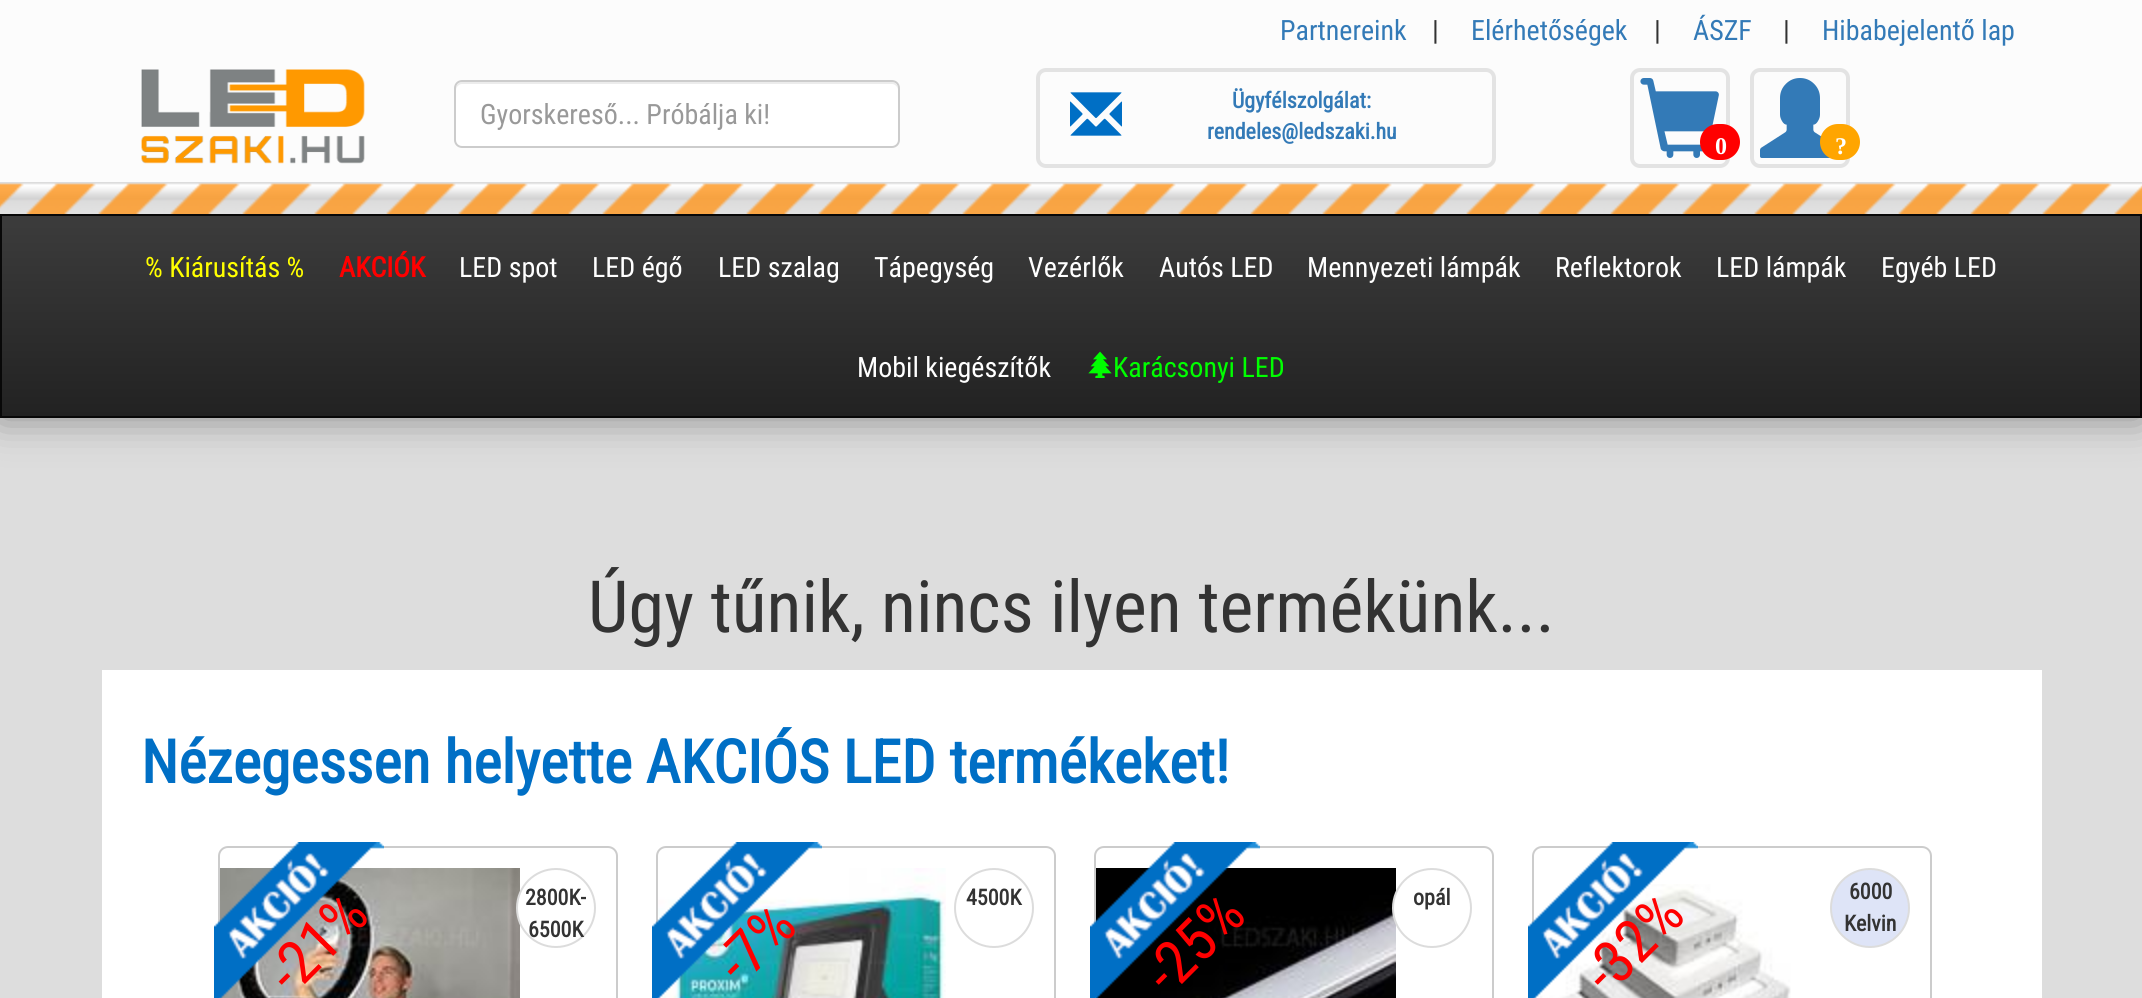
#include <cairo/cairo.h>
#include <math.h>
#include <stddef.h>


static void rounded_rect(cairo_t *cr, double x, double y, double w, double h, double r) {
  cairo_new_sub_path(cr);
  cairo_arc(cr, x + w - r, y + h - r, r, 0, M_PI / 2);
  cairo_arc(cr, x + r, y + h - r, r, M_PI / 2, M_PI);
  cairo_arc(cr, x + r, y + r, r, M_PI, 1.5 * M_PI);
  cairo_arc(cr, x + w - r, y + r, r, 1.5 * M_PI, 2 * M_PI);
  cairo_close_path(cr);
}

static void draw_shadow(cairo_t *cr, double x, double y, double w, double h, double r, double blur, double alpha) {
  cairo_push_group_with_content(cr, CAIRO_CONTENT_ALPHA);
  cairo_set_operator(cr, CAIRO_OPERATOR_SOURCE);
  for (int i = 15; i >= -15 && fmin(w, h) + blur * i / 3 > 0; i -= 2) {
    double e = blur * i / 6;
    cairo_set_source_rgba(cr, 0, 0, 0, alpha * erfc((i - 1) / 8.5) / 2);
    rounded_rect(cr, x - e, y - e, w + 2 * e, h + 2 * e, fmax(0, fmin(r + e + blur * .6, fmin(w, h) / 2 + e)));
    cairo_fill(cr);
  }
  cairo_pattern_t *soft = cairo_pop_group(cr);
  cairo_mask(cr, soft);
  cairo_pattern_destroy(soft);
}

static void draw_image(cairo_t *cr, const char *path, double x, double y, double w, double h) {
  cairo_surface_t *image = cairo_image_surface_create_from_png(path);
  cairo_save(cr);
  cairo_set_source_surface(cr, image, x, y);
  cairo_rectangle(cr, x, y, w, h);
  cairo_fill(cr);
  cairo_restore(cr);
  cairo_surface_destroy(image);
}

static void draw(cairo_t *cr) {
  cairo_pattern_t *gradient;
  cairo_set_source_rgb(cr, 221 / 255.0, 221 / 255.0, 221 / 255.0);
  cairo_paint(cr);
  cairo_set_source_rgb(cr, 50 / 255.0, 50 / 255.0, 50 / 255.0);
  draw_shadow(cr, 0, 0, 2142, 418, 0, 20, 0.5);
  cairo_set_source_rgb(cr, 252 / 255.0, 252 / 255.0, 252 / 255.0);
  cairo_rectangle(cr, 0, 0, 2142, 182);
  cairo_fill(cr);
  draw_image(cr, "images/1.png", 141, 69, 224, 95);
  cairo_set_source_rgb(cr, 1, 1, 1);
  rounded_rect(cr, 454, 80, 446, 68, 8);
  cairo_fill(cr);
  cairo_set_source_rgb(cr, 236 / 255.0, 236 / 255.0, 236 / 255.0);
  cairo_new_path(cr);
  cairo_move_to(cr, 462, 84);
  cairo_line_to(cr, 892, 84);
  cairo_curve_to(cr, 895, 84, 898, 87, 898, 90);
  cairo_line_to(cr, 898, 88);
  cairo_curve_to(cr, 898, 85, 895, 82, 892, 82);
  cairo_line_to(cr, 462, 82);
  cairo_curve_to(cr, 459, 82, 456, 85, 456, 88);
  cairo_line_to(cr, 456, 90);
  cairo_curve_to(cr, 456, 87, 459, 84, 462, 84);
  cairo_close_path(cr);
  cairo_fill(cr);
  rounded_rect(cr, 455, 81, 444, 66, 7);
  cairo_set_source_rgb(cr, 204 / 255.0, 204 / 255.0, 204 / 255.0);
  cairo_stroke(cr);
  rounded_rect(cr, 1038, 70, 456, 96, 8);
  cairo_set_source_rgb(cr, 227 / 255.0, 227 / 255.0, 227 / 255.0);
  cairo_set_line_width(cr, 4);
  cairo_stroke(cr);
  draw_image(cr, "images/2.png", 1070, 92, 52, 44);
  rounded_rect(cr, 1632, 70, 96, 96, 8);
  cairo_stroke(cr);
  draw_image(cr, "images/3.png", 1640, 78, 79, 80);
  cairo_set_source_rgb(cr, 1, 0, 0);
  rounded_rect(cr, 1700, 124, 40, 36, 18);
  cairo_fill(cr);
  rounded_rect(cr, 1752, 70, 96, 96, 8);
  cairo_set_source_rgb(cr, 227 / 255.0, 227 / 255.0, 227 / 255.0);
  cairo_stroke(cr);
  draw_image(cr, "images/4.png", 1760, 78, 70, 80);
  cairo_set_source_rgb(cr, 1, 165 / 255.0, 0);
  rounded_rect(cr, 1820, 124, 40, 36, 18);
  cairo_fill(cr);
  draw_image(cr, "images/5.png", 0, 182, 2142, 32);
  gradient = cairo_pattern_create_linear(1071, 216, 1071, 416);
  cairo_pattern_add_color_stop_rgba(gradient, 0, 60 / 255.0, 60 / 255.0, 60 / 255.0, 1);
  cairo_pattern_add_color_stop_rgba(gradient, 1, 34 / 255.0, 34 / 255.0, 34 / 255.0, 1);
  cairo_set_source(cr, gradient);
  cairo_pattern_destroy(gradient);
  cairo_rectangle(cr, 2, 216, 2138, 200);
  cairo_fill(cr);
  cairo_rectangle(cr, 1, 215, 2140, 202);
  cairo_set_source_rgb(cr, 8 / 255.0, 8 / 255.0, 8 / 255.0);
  cairo_set_line_width(cr, 2);
  cairo_stroke(cr);
  draw_image(cr, "images/6.png", 1088, 351, 24, 27);
  cairo_set_source_rgb(cr, 1, 1, 1);
  cairo_rectangle(cr, 102, 670, 1940, 328);
  cairo_fill(cr);
  rounded_rect(cr, 219, 847, 398, 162, 9);
  cairo_set_source_rgb(cr, 204 / 255.0, 204 / 255.0, 204 / 255.0);
  cairo_stroke(cr);
  draw_image(cr, "images/7.png", 220, 868, 300, 130);
  cairo_set_source_rgb(cr, 1, 1, 1);
  cairo_arc(cr, 556, 908, 39, 0, 2 * M_PI);
  cairo_fill_preserve(cr);
  cairo_set_source_rgb(cr, 220 / 255.0, 220 / 255.0, 220 / 255.0);
  cairo_stroke(cr);
  draw_image(cr, "images/8.png", 214, 842, 170, 156);
  rounded_rect(cr, 657, 847, 398, 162, 9);
  cairo_set_source_rgb(cr, 204 / 255.0, 204 / 255.0, 204 / 255.0);
  cairo_stroke(cr);
  draw_image(cr, "images/9.png", 658, 868, 288, 130);
  cairo_arc(cr, 994, 908, 39, 0, 2 * M_PI);
  cairo_set_source_rgb(cr, 220 / 255.0, 220 / 255.0, 220 / 255.0);
  cairo_stroke(cr);
  draw_image(cr, "images/10.png", 652, 842, 170, 156);
  rounded_rect(cr, 1095, 847, 398, 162, 9);
  cairo_set_source_rgb(cr, 204 / 255.0, 204 / 255.0, 204 / 255.0);
  cairo_stroke(cr);
  draw_image(cr, "images/11.png", 1096, 868, 300, 130);
  cairo_set_source_rgb(cr, 1, 1, 1);
  cairo_arc(cr, 1432, 908, 39, 0, 2 * M_PI);
  cairo_fill_preserve(cr);
  cairo_set_source_rgb(cr, 220 / 255.0, 220 / 255.0, 220 / 255.0);
  cairo_stroke(cr);
  draw_image(cr, "images/12.png", 1090, 842, 170, 156);
  rounded_rect(cr, 1533, 847, 398, 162, 9);
  cairo_set_source_rgb(cr, 204 / 255.0, 204 / 255.0, 204 / 255.0);
  cairo_stroke(cr);
  draw_image(cr, "images/13.png", 1540, 884, 251, 114);
  cairo_set_source_rgb(cr, 222 / 255.0, 228 / 255.0, 247 / 255.0);
  cairo_arc(cr, 1870, 908, 39, 0, 2 * M_PI);
  cairo_fill_preserve(cr);
  cairo_set_source_rgb(cr, 220 / 255.0, 220 / 255.0, 220 / 255.0);
  cairo_stroke(cr);
  draw_image(cr, "images/14.png", 1528, 842, 170, 156);
  cairo_select_font_face(cr, "Roboto Condensed", CAIRO_FONT_SLANT_NORMAL, CAIRO_FONT_WEIGHT_NORMAL);
  cairo_set_font_size(cr, 28);
  cairo_set_source_rgb(cr, 51 / 255.0, 122 / 255.0, 183 / 255.0);
  cairo_move_to(cr, 1280, 40);
  cairo_show_text(cr, "Partnereink");
  cairo_set_source_rgb(cr, 51 / 255.0, 51 / 255.0, 51 / 255.0);
  cairo_move_to(cr, 1432, 40);
  cairo_show_text(cr, "|");
  cairo_set_source_rgb(cr, 51 / 255.0, 122 / 255.0, 183 / 255.0);
  cairo_move_to(cr, 1471, 40);
  cairo_show_text(cr, "Elérhetőségek");
  cairo_set_source_rgb(cr, 51 / 255.0, 51 / 255.0, 51 / 255.0);
  cairo_move_to(cr, 1654, 40);
  cairo_show_text(cr, "|");
  cairo_set_source_rgb(cr, 51 / 255.0, 122 / 255.0, 183 / 255.0);
  cairo_move_to(cr, 1693, 40);
  cairo_show_text(cr, "ÁSZF");
  cairo_set_source_rgb(cr, 51 / 255.0, 51 / 255.0, 51 / 255.0);
  cairo_move_to(cr, 1783, 40);
  cairo_show_text(cr, "|");
  cairo_set_source_rgb(cr, 51 / 255.0, 122 / 255.0, 183 / 255.0);
  cairo_move_to(cr, 1822, 40);
  cairo_show_text(cr, "Hibabejelentő lap");
  cairo_set_source_rgb(cr, 153 / 255.0, 153 / 255.0, 153 / 255.0);
  cairo_move_to(cr, 480, 124);
  cairo_show_text(cr, "Gyorskereső... Próbálja ki!");
  cairo_select_font_face(cr, "Roboto Condensed", CAIRO_FONT_SLANT_NORMAL, CAIRO_FONT_WEIGHT_BOLD);
  cairo_set_font_size(cr, 22);
  cairo_set_source_rgb(cr, 51 / 255.0, 122 / 255.0, 183 / 255.0);
  cairo_move_to(cr, 1232, 108);
  cairo_show_text(cr, "Ügyfélszolgálat:");
  cairo_move_to(cr, 1207, 139);
  cairo_show_text(cr, "rendeles@ledszaki.hu");
  cairo_select_font_face(cr, "Liberation Serif", CAIRO_FONT_SLANT_NORMAL, CAIRO_FONT_WEIGHT_BOLD);
  cairo_set_font_size(cr, 24);
  cairo_set_source_rgb(cr, 1, 1, 1);
  cairo_move_to(cr, 1715, 154);
  cairo_show_text(cr, "0");
  cairo_move_to(cr, 1835, 154);
  cairo_show_text(cr, "?");
  cairo_select_font_face(cr, "Roboto Condensed", CAIRO_FONT_SLANT_NORMAL, CAIRO_FONT_WEIGHT_NORMAL);
  cairo_set_font_size(cr, 28);
  cairo_set_source_rgb(cr, 1, 1, 0);
  cairo_move_to(cr, 145, 277);
  cairo_show_text(cr, "% Kiárusítás %");
  cairo_select_font_face(cr, "Roboto Condensed", CAIRO_FONT_SLANT_NORMAL, CAIRO_FONT_WEIGHT_BOLD);
  cairo_set_source_rgb(cr, 1, 0, 0);
  cairo_move_to(cr, 339, 277);
  cairo_show_text(cr, "AKCIÓK");
  cairo_select_font_face(cr, "Roboto Condensed", CAIRO_FONT_SLANT_NORMAL, CAIRO_FONT_WEIGHT_NORMAL);
  cairo_set_source_rgb(cr, 1, 1, 1);
  cairo_move_to(cr, 459, 277);
  cairo_show_text(cr, "LED spot");
  cairo_move_to(cr, 592, 277);
  cairo_show_text(cr, "LED égő");
  cairo_move_to(cr, 718, 277);
  cairo_show_text(cr, "LED szalag");
  cairo_move_to(cr, 874, 277);
  cairo_show_text(cr, "Tápegység");
  cairo_move_to(cr, 1028, 277);
  cairo_show_text(cr, "Vezérlők");
  cairo_move_to(cr, 1159, 277);
  cairo_show_text(cr, "Autós LED");
  cairo_move_to(cr, 1307, 277);
  cairo_show_text(cr, "Mennyezeti lámpák");
  cairo_move_to(cr, 1555, 277);
  cairo_show_text(cr, "Reflektorok");
  cairo_move_to(cr, 1716, 277);
  cairo_show_text(cr, "LED lámpák");
  cairo_move_to(cr, 1881, 277);
  cairo_show_text(cr, "Egyéb LED");
  cairo_move_to(cr, 857, 377);
  cairo_show_text(cr, "Mobil kiegészítők");
  cairo_set_source_rgb(cr, 0, 1, 0);
  cairo_move_to(cr, 1113, 377);
  cairo_show_text(cr, "Karácsonyi LED");
  cairo_set_font_size(cr, 72);
  cairo_set_source_rgb(cr, 51 / 255.0, 51 / 255.0, 51 / 255.0);
  cairo_move_to(cr, 588, 632);
  cairo_show_text(cr, "Úgy tűnik, nincs ilyen termékünk...");
  cairo_select_font_face(cr, "Roboto Condensed", CAIRO_FONT_SLANT_NORMAL, CAIRO_FONT_WEIGHT_BOLD);
  cairo_set_font_size(cr, 60);
  cairo_set_source_rgb(cr, 0, 111 / 255.0, 197 / 255.0);
  cairo_move_to(cr, 141, 783);
  cairo_show_text(cr, "Nézegessen helyette AKCIÓS LED termékeket!");
  cairo_set_font_size(cr, 22);
  cairo_set_source_rgb(cr, 51 / 255.0, 51 / 255.0, 51 / 255.0);
  cairo_move_to(cr, 525, 905);
  cairo_show_text(cr, "2800K-");
  cairo_move_to(cr, 528, 937);
  cairo_show_text(cr, "6500K");
  cairo_select_font_face(cr, "Roboto Condensed", CAIRO_FONT_SLANT_NORMAL, CAIRO_FONT_WEIGHT_NORMAL);
  cairo_set_font_size(cr, 60);
  cairo_set_source_rgb(cr, 1, 0, 0);
  cairo_save(cr);
  cairo_translate(cr, 292, 997);
  cairo_rotate(cr, -45 * M_PI / 180);
  cairo_move_to(cr, 0, 0);
  cairo_show_text(cr, "-21%");
  cairo_restore(cr);
  cairo_select_font_face(cr, "Roboto Condensed", CAIRO_FONT_SLANT_NORMAL, CAIRO_FONT_WEIGHT_BOLD);
  cairo_set_font_size(cr, 22);
  cairo_set_source_rgb(cr, 51 / 255.0, 51 / 255.0, 51 / 255.0);
  cairo_move_to(cr, 966, 905);
  cairo_show_text(cr, "4500K");
  cairo_select_font_face(cr, "Roboto Condensed", CAIRO_FONT_SLANT_NORMAL, CAIRO_FONT_WEIGHT_NORMAL);
  cairo_set_font_size(cr, 60);
  cairo_set_source_rgb(cr, 1, 0, 0);
  cairo_save(cr);
  cairo_translate(cr, 741, 987);
  cairo_rotate(cr, -45 * M_PI / 180);
  cairo_move_to(cr, 0, 0);
  cairo_show_text(cr, "-7%");
  cairo_restore(cr);
  cairo_select_font_face(cr, "Roboto Condensed", CAIRO_FONT_SLANT_NORMAL, CAIRO_FONT_WEIGHT_BOLD);
  cairo_set_font_size(cr, 22);
  cairo_set_source_rgb(cr, 51 / 255.0, 51 / 255.0, 51 / 255.0);
  cairo_move_to(cr, 1413, 905);
  cairo_show_text(cr, "opál");
  cairo_select_font_face(cr, "Roboto Condensed", CAIRO_FONT_SLANT_NORMAL, CAIRO_FONT_WEIGHT_NORMAL);
  cairo_set_font_size(cr, 60);
  cairo_set_source_rgb(cr, 1, 0, 0);
  cairo_save(cr);
  cairo_translate(cr, 1169, 997);
  cairo_rotate(cr, -45 * M_PI / 180);
  cairo_move_to(cr, 0, 0);
  cairo_show_text(cr, "-25%");
  cairo_restore(cr);
  cairo_select_font_face(cr, "Roboto Condensed", CAIRO_FONT_SLANT_NORMAL, CAIRO_FONT_WEIGHT_BOLD);
  cairo_set_font_size(cr, 22);
  cairo_set_source_rgb(cr, 51 / 255.0, 51 / 255.0, 51 / 255.0);
  cairo_move_to(cr, 1849, 899);
  cairo_show_text(cr, "6000");
  cairo_move_to(cr, 1844, 931);
  cairo_show_text(cr, "Kelvin");
  cairo_select_font_face(cr, "Roboto Condensed", CAIRO_FONT_SLANT_NORMAL, CAIRO_FONT_WEIGHT_NORMAL);
  cairo_set_font_size(cr, 60);
  cairo_set_source_rgb(cr, 1, 0, 0);
  cairo_save(cr);
  cairo_translate(cr, 1608, 997);
  cairo_rotate(cr, -45 * M_PI / 180);
  cairo_move_to(cr, 0, 0);
  cairo_show_text(cr, "-32%");
  cairo_restore(cr);
}

int main(void) {
  cairo_surface_t *surface = cairo_image_surface_create(CAIRO_FORMAT_RGB24, 2142, 998);
  cairo_t *cr = cairo_create(surface);
  cairo_font_options_t *options = cairo_font_options_create();
  cairo_font_options_set_hint_metrics(options, CAIRO_HINT_METRICS_OFF);
  cairo_font_options_set_hint_style(options, CAIRO_HINT_STYLE_NONE);
  cairo_set_font_options(cr, options);
  cairo_set_miter_limit(cr, 4);
  draw(cr);
  cairo_surface_write_to_png(surface, "out.png");
  cairo_font_options_destroy(options);
  cairo_destroy(cr);
  cairo_surface_destroy(surface);
  return 0;
}
